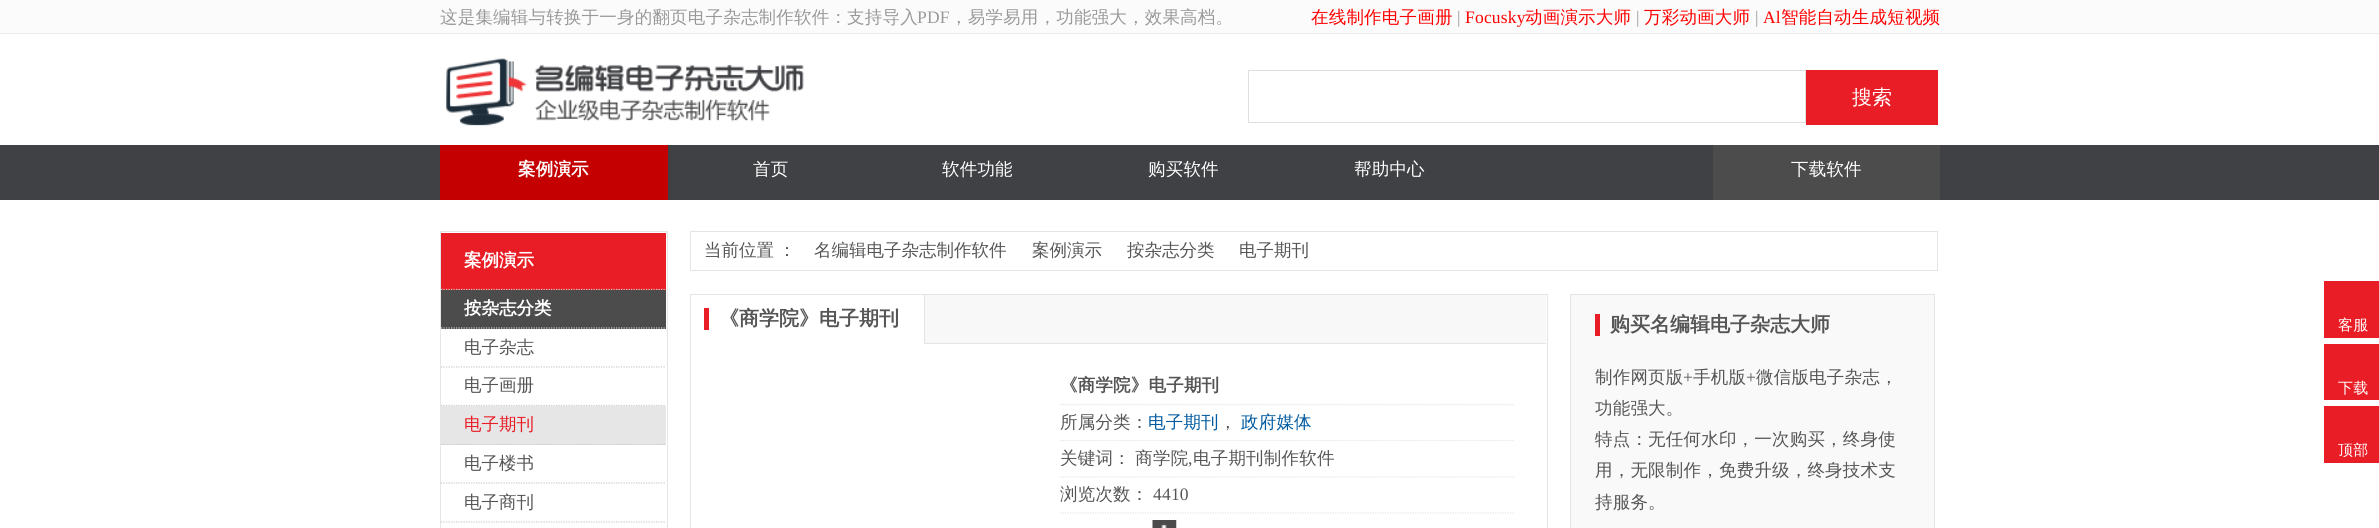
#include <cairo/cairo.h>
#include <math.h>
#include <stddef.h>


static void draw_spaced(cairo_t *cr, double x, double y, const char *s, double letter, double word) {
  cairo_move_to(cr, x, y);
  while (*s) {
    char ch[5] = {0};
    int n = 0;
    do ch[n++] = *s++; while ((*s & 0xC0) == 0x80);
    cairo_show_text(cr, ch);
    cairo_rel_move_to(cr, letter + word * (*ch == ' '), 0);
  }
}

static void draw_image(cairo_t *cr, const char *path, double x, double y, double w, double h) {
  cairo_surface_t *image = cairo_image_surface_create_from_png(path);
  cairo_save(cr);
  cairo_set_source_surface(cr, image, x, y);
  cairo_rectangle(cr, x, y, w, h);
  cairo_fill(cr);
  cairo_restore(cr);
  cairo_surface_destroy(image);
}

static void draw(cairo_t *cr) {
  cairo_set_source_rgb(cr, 1, 1, 1);
  cairo_paint(cr);
  cairo_set_source_rgb(cr, 251 / 255.0, 251 / 255.0, 251 / 255.0);
  cairo_rectangle(cr, 0, 0, 2379, 33);
  cairo_fill(cr);
  cairo_set_source_rgb(cr, 233 / 255.0, 233 / 255.0, 233 / 255.0);
  cairo_rectangle(cr, 0, 33, 2379, 1);
  cairo_fill(cr);
  draw_image(cr, "images/1.png", 446, 58, 358, 68);
  cairo_rectangle(cr, 1248.5, 70.5, 557, 52);
  cairo_set_source_rgb(cr, 223 / 255.0, 223 / 255.0, 223 / 255.0);
  cairo_set_line_width(cr, 1);
  cairo_stroke(cr);
  cairo_set_source_rgb(cr, 233 / 255.0, 29 / 255.0, 37 / 255.0);
  cairo_rectangle(cr, 1806, 70, 132, 55);
  cairo_fill(cr);
  cairo_set_source_rgb(cr, 64 / 255.0, 65 / 255.0, 68 / 255.0);
  cairo_rectangle(cr, 0, 145, 2379, 55);
  cairo_fill(cr);
  cairo_set_source_rgb(cr, 196 / 255.0, 0, 0);
  cairo_rectangle(cr, 440, 145, 228, 55);
  cairo_fill(cr);
  cairo_set_source_rgb(cr, 76 / 255.0, 76 / 255.0, 76 / 255.0);
  cairo_rectangle(cr, 1713, 145, 227, 55);
  cairo_fill(cr);
  cairo_rectangle(cr, 440.5, 231.5, 227, 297);
  cairo_set_source_rgb(cr, 230 / 255.0, 230 / 255.0, 230 / 255.0);
  cairo_stroke(cr);
  cairo_set_source_rgb(cr, 233 / 255.0, 29 / 255.0, 37 / 255.0);
  cairo_rectangle(cr, 441, 233, 225, 57);
  cairo_fill(cr);
  cairo_new_path(cr);
  cairo_move_to(cr, 441, 289.5);
  cairo_line_to(cr, 666, 289.5);
  cairo_set_source_rgb(cr, 203 / 255.0, 203 / 255.0, 203 / 255.0);
  cairo_set_line_width(cr, 1.2);
  cairo_set_dash(cr, (double[]){1.25, 1.25}, 2, 0);
  cairo_stroke(cr);
  cairo_set_source_rgb(cr, 76 / 255.0, 76 / 255.0, 76 / 255.0);
  cairo_rectangle(cr, 441, 290, 225, 39);
  cairo_fill(cr);
  cairo_new_path(cr);
  cairo_move_to(cr, 441, 328);
  cairo_line_to(cr, 666, 328);
  cairo_set_source_rgb(cr, 203 / 255.0, 203 / 255.0, 203 / 255.0);
  cairo_stroke(cr);
  cairo_new_path(cr);
  cairo_move_to(cr, 441, 367);
  cairo_line_to(cr, 666, 367);
  cairo_stroke(cr);
  cairo_new_path(cr);
  cairo_move_to(cr, 441, 405.5);
  cairo_line_to(cr, 666, 405.5);
  cairo_stroke(cr);
  cairo_set_source_rgb(cr, 230 / 255.0, 230 / 255.0, 230 / 255.0);
  cairo_rectangle(cr, 441, 406, 225, 39);
  cairo_fill(cr);
  cairo_new_path(cr);
  cairo_move_to(cr, 441, 444.5);
  cairo_line_to(cr, 666, 444.5);
  cairo_set_source_rgb(cr, 203 / 255.0, 203 / 255.0, 203 / 255.0);
  cairo_stroke(cr);
  cairo_set_source_rgb(cr, 1, 1, 1);
  cairo_rectangle(cr, 441, 445, 224, 1);
  cairo_fill(cr);
  cairo_new_path(cr);
  cairo_move_to(cr, 441, 483);
  cairo_line_to(cr, 666, 483);
  cairo_set_source_rgb(cr, 203 / 255.0, 203 / 255.0, 203 / 255.0);
  cairo_stroke(cr);
  cairo_new_path(cr);
  cairo_move_to(cr, 441, 522);
  cairo_line_to(cr, 666, 522);
  cairo_stroke(cr);
  cairo_rectangle(cr, 690.5, 231.5, 1247, 39);
  cairo_set_source_rgb(cr, 228 / 255.0, 228 / 255.0, 228 / 255.0);
  cairo_set_line_width(cr, 1);
  cairo_set_dash(cr, NULL, 0, 0);
  cairo_stroke(cr);
  cairo_rectangle(cr, 690.5, 294.5, 857, 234);
  cairo_stroke(cr);
  cairo_rectangle(cr, 924, 295, 1, 49);
  cairo_fill(cr);
  cairo_set_source_rgb(cr, 233 / 255.0, 29 / 255.0, 37 / 255.0);
  cairo_rectangle(cr, 704, 308, 5, 22);
  cairo_fill(cr);
  cairo_set_source_rgb(cr, 248 / 255.0, 248 / 255.0, 248 / 255.0);
  cairo_rectangle(cr, 925, 295, 621, 48);
  cairo_fill(cr);
  cairo_set_source_rgb(cr, 228 / 255.0, 228 / 255.0, 228 / 255.0);
  cairo_rectangle(cr, 925, 343, 621, 1);
  cairo_fill(cr);
  cairo_new_path(cr);
  cairo_move_to(cr, 1060, 404.5);
  cairo_line_to(cr, 1514, 404.5);
  cairo_set_line_width(cr, 1.2);
  cairo_set_dash(cr, (double[]){1.25, 1.25}, 2, 0);
  cairo_stroke(cr);
  cairo_new_path(cr);
  cairo_move_to(cr, 1060, 440.5);
  cairo_line_to(cr, 1514, 440.5);
  cairo_stroke(cr);
  cairo_new_path(cr);
  cairo_move_to(cr, 1060, 477);
  cairo_line_to(cr, 1514, 477);
  cairo_stroke(cr);
  cairo_new_path(cr);
  cairo_move_to(cr, 1060, 513);
  cairo_line_to(cr, 1514, 513);
  cairo_stroke(cr);
  draw_image(cr, "images/2.png", 1152, 520, 25, 8);
  cairo_set_source_rgb(cr, 249 / 255.0, 249 / 255.0, 249 / 255.0);
  cairo_rectangle(cr, 1570.5, 294.5, 364, 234);
  cairo_fill_preserve(cr);
  cairo_set_source_rgb(cr, 228 / 255.0, 228 / 255.0, 228 / 255.0);
  cairo_set_line_width(cr, 1);
  cairo_set_dash(cr, NULL, 0, 0);
  cairo_stroke(cr);
  cairo_set_source_rgb(cr, 233 / 255.0, 29 / 255.0, 37 / 255.0);
  cairo_rectangle(cr, 1595, 314, 5, 22);
  cairo_fill(cr);
  cairo_rectangle(cr, 2324, 281, 55, 57);
  cairo_fill(cr);
  cairo_rectangle(cr, 2324, 344, 55, 56);
  cairo_fill(cr);
  cairo_rectangle(cr, 2324, 406, 55, 57);
  cairo_fill(cr);
  cairo_select_font_face(cr, "WenQuanYi Zen Hei Medium", CAIRO_FONT_SLANT_NORMAL, CAIRO_FONT_WEIGHT_NORMAL);
  cairo_set_font_size(cr, 17.5);
  cairo_set_source_rgb(cr, 153 / 255.0, 153 / 255.0, 153 / 255.0);
  draw_spaced(cr, 440, 23, "这是集编辑与转换于一身的翻页电子杂志制作软件：支持导入", 0.2, 0);
  cairo_select_font_face(cr, "Liberation Serif", CAIRO_FONT_SLANT_NORMAL, CAIRO_FONT_WEIGHT_NORMAL);
  draw_spaced(cr, 917, 23, "PDF", 0.2, 0);
  cairo_select_font_face(cr, "WenQuanYi Zen Hei Medium", CAIRO_FONT_SLANT_NORMAL, CAIRO_FONT_WEIGHT_NORMAL);
  draw_spaced(cr, 950, 23, "，易学易用，功能强大，效果高档。", 0.2, 0);
  cairo_set_source_rgb(cr, 1, 0, 0);
  draw_spaced(cr, 1311, 23, "在线制作电子画册", 0.2, 0);
  cairo_select_font_face(cr, "Liberation Serif", CAIRO_FONT_SLANT_NORMAL, CAIRO_FONT_WEIGHT_NORMAL);
  cairo_set_source_rgb(cr, 153 / 255.0, 153 / 255.0, 153 / 255.0);
  draw_spaced(cr, 1457, 23, "|", 0.2, 0);
  cairo_set_source_rgb(cr, 1, 0, 0);
  draw_spaced(cr, 1465, 23, "Focusky", 0.2, 0);
  cairo_select_font_face(cr, "WenQuanYi Zen Hei Medium", CAIRO_FONT_SLANT_NORMAL, CAIRO_FONT_WEIGHT_NORMAL);
  draw_spaced(cr, 1525, 23, "动画演示大师", 0.2, 0);
  cairo_select_font_face(cr, "Liberation Serif", CAIRO_FONT_SLANT_NORMAL, CAIRO_FONT_WEIGHT_NORMAL);
  cairo_set_source_rgb(cr, 153 / 255.0, 153 / 255.0, 153 / 255.0);
  draw_spaced(cr, 1636, 23, "|", 0.2, 0);
  cairo_select_font_face(cr, "WenQuanYi Zen Hei Medium", CAIRO_FONT_SLANT_NORMAL, CAIRO_FONT_WEIGHT_NORMAL);
  cairo_set_source_rgb(cr, 1, 0, 0);
  draw_spaced(cr, 1644, 23, "万彩动画大师", 0.2, 0);
  cairo_select_font_face(cr, "Liberation Serif", CAIRO_FONT_SLANT_NORMAL, CAIRO_FONT_WEIGHT_NORMAL);
  cairo_set_source_rgb(cr, 153 / 255.0, 153 / 255.0, 153 / 255.0);
  draw_spaced(cr, 1755, 23, "|", 0.2, 0);
  cairo_set_source_rgb(cr, 1, 0, 0);
  draw_spaced(cr, 1763, 23, "Al", 0.2, 0);
  cairo_select_font_face(cr, "WenQuanYi Zen Hei Medium", CAIRO_FONT_SLANT_NORMAL, CAIRO_FONT_WEIGHT_NORMAL);
  draw_spaced(cr, 1781, 23, "智能自动生成短视频", 0.2, 0);
  cairo_set_font_size(cr, 20);
  cairo_set_source_rgb(cr, 1, 1, 1);
  cairo_move_to(cr, 1852, 104);
  cairo_show_text(cr, "搜索");
  cairo_select_font_face(cr, "WenQuanYi Zen Hei", CAIRO_FONT_SLANT_NORMAL, CAIRO_FONT_WEIGHT_BOLD);
  cairo_set_font_size(cr, 17.5);
  draw_spaced(cr, 518, 175, "案例演示", 0.2, 0);
  cairo_select_font_face(cr, "WenQuanYi Zen Hei Medium", CAIRO_FONT_SLANT_NORMAL, CAIRO_FONT_WEIGHT_NORMAL);
  draw_spaced(cr, 753, 175, "首页", 0.2, 0);
  draw_spaced(cr, 942, 175, "软件功能", 0.2, 0);
  draw_spaced(cr, 1148, 175, "购买软件", 0.2, 0);
  draw_spaced(cr, 1354, 175, "帮助中心", 0.2, 0);
  draw_spaced(cr, 1791, 175, "下载软件", 0.2, 0);
  cairo_select_font_face(cr, "WenQuanYi Zen Hei", CAIRO_FONT_SLANT_NORMAL, CAIRO_FONT_WEIGHT_BOLD);
  cairo_move_to(cr, 464, 266);
  cairo_show_text(cr, "案例演示");
  cairo_move_to(cr, 464, 314);
  cairo_show_text(cr, "按杂志分类");
  cairo_select_font_face(cr, "WenQuanYi Zen Hei Medium", CAIRO_FONT_SLANT_NORMAL, CAIRO_FONT_WEIGHT_NORMAL);
  cairo_set_source_rgb(cr, 85 / 255.0, 85 / 255.0, 85 / 255.0);
  cairo_move_to(cr, 464, 353);
  cairo_show_text(cr, "电子杂志");
  cairo_move_to(cr, 464, 391);
  cairo_show_text(cr, "电子画册");
  cairo_set_source_rgb(cr, 233 / 255.0, 29 / 255.0, 37 / 255.0);
  cairo_move_to(cr, 464, 430);
  cairo_show_text(cr, "电子期刊");
  cairo_set_source_rgb(cr, 85 / 255.0, 85 / 255.0, 85 / 255.0);
  cairo_move_to(cr, 464, 469);
  cairo_show_text(cr, "电子楼书");
  cairo_move_to(cr, 464, 508);
  cairo_show_text(cr, "电子商刊");
  draw_spaced(cr, 704, 256, "当前位置 ：", 0, -1);
  cairo_move_to(cr, 814, 256);
  cairo_show_text(cr, "名编辑电子杂志制作软件");
  cairo_move_to(cr, 1032, 256);
  cairo_show_text(cr, "案例演示");
  cairo_move_to(cr, 1127, 256);
  cairo_show_text(cr, "按杂志分类");
  cairo_move_to(cr, 1239, 256);
  cairo_show_text(cr, "电子期刊");
  cairo_select_font_face(cr, "WenQuanYi Zen Hei", CAIRO_FONT_SLANT_NORMAL, CAIRO_FONT_WEIGHT_BOLD);
  cairo_set_font_size(cr, 20);
  cairo_move_to(cr, 719, 325);
  cairo_show_text(cr, "《商学院》电子期刊");
  cairo_set_font_size(cr, 17.5);
  draw_spaced(cr, 1060, 391, "《商学院》电子期刊", 0.2, 0);
  cairo_select_font_face(cr, "WenQuanYi Zen Hei Medium", CAIRO_FONT_SLANT_NORMAL, CAIRO_FONT_WEIGHT_NORMAL);
  draw_spaced(cr, 1060, 428, "所属分类：", 0.2, 0);
  cairo_set_source_rgb(cr, 0, 90 / 255.0, 160 / 255.0);
  draw_spaced(cr, 1148, 428, "电子期刊", 0.2, 0);
  cairo_set_source_rgb(cr, 85 / 255.0, 85 / 255.0, 85 / 255.0);
  draw_spaced(cr, 1219, 428, "，", 0.2, 0);
  cairo_set_source_rgb(cr, 0, 90 / 255.0, 160 / 255.0);
  draw_spaced(cr, 1241, 428, "政府媒体", 0.2, 0);
  cairo_set_source_rgb(cr, 85 / 255.0, 85 / 255.0, 85 / 255.0);
  draw_spaced(cr, 1060, 464, "关键词： 商学院", 0.2, -1);
  cairo_select_font_face(cr, "Liberation Serif", CAIRO_FONT_SLANT_NORMAL, CAIRO_FONT_WEIGHT_NORMAL);
  draw_spaced(cr, 1188, 464, ",", 0.2, 0);
  cairo_select_font_face(cr, "WenQuanYi Zen Hei Medium", CAIRO_FONT_SLANT_NORMAL, CAIRO_FONT_WEIGHT_NORMAL);
  draw_spaced(cr, 1193, 464, "电子期刊制作软件", 0.2, 0);
  draw_spaced(cr, 1060, 500, "浏览次数：", 0.2, 0);
  cairo_select_font_face(cr, "Liberation Serif", CAIRO_FONT_SLANT_NORMAL, CAIRO_FONT_WEIGHT_NORMAL);
  draw_spaced(cr, 1153, 500, "4410", 0.2, 0);
  cairo_select_font_face(cr, "WenQuanYi Zen Hei", CAIRO_FONT_SLANT_NORMAL, CAIRO_FONT_WEIGHT_BOLD);
  cairo_set_font_size(cr, 20);
  cairo_move_to(cr, 1610, 331);
  cairo_show_text(cr, "购买名编辑电子杂志大师");
  cairo_select_font_face(cr, "WenQuanYi Zen Hei Medium", CAIRO_FONT_SLANT_NORMAL, CAIRO_FONT_WEIGHT_NORMAL);
  cairo_set_font_size(cr, 17.5);
  draw_spaced(cr, 1595, 383, "制作网页版", 0.2, 0);
  cairo_select_font_face(cr, "Liberation Serif", CAIRO_FONT_SLANT_NORMAL, CAIRO_FONT_WEIGHT_NORMAL);
  draw_spaced(cr, 1683, 383, "+", 0.2, 0);
  cairo_select_font_face(cr, "WenQuanYi Zen Hei Medium", CAIRO_FONT_SLANT_NORMAL, CAIRO_FONT_WEIGHT_NORMAL);
  draw_spaced(cr, 1693, 383, "手机版", 0.2, 0);
  cairo_select_font_face(cr, "Liberation Serif", CAIRO_FONT_SLANT_NORMAL, CAIRO_FONT_WEIGHT_NORMAL);
  draw_spaced(cr, 1746, 383, "+", 0.2, 0);
  cairo_select_font_face(cr, "WenQuanYi Zen Hei Medium", CAIRO_FONT_SLANT_NORMAL, CAIRO_FONT_WEIGHT_NORMAL);
  draw_spaced(cr, 1756, 383, "微信版电子杂志，", 0.2, 0);
  draw_spaced(cr, 1595, 414, "功能强大。", 0.2, 0);
  draw_spaced(cr, 1595, 445, "特点：无任何水印，一次购买，终身使", 0.2, 0);
  draw_spaced(cr, 1595, 476, "用，无限制作，免费升级，终身技术支", 0.2, 0);
  draw_spaced(cr, 1595, 508, "持服务。", 0.2, 0);
  cairo_set_font_size(cr, 15);
  cairo_set_source_rgb(cr, 1, 1, 1);
  draw_spaced(cr, 2338, 330, "客服", 0.2, 0);
  draw_spaced(cr, 2338, 393, "下载", 0.2, 0);
  draw_spaced(cr, 2338, 455, "顶部", 0.2, 0);
}

int main(void) {
  cairo_surface_t *surface = cairo_image_surface_create(CAIRO_FORMAT_RGB24, 2379, 528);
  cairo_t *cr = cairo_create(surface);
  cairo_font_options_t *options = cairo_font_options_create();
  cairo_font_options_set_hint_metrics(options, CAIRO_HINT_METRICS_OFF);
  cairo_font_options_set_hint_style(options, CAIRO_HINT_STYLE_NONE);
  cairo_set_font_options(cr, options);
  cairo_set_miter_limit(cr, 4);
  draw(cr);
  cairo_surface_write_to_png(surface, "out.png");
  cairo_font_options_destroy(options);
  cairo_destroy(cr);
  cairo_surface_destroy(surface);
  return 0;
}
